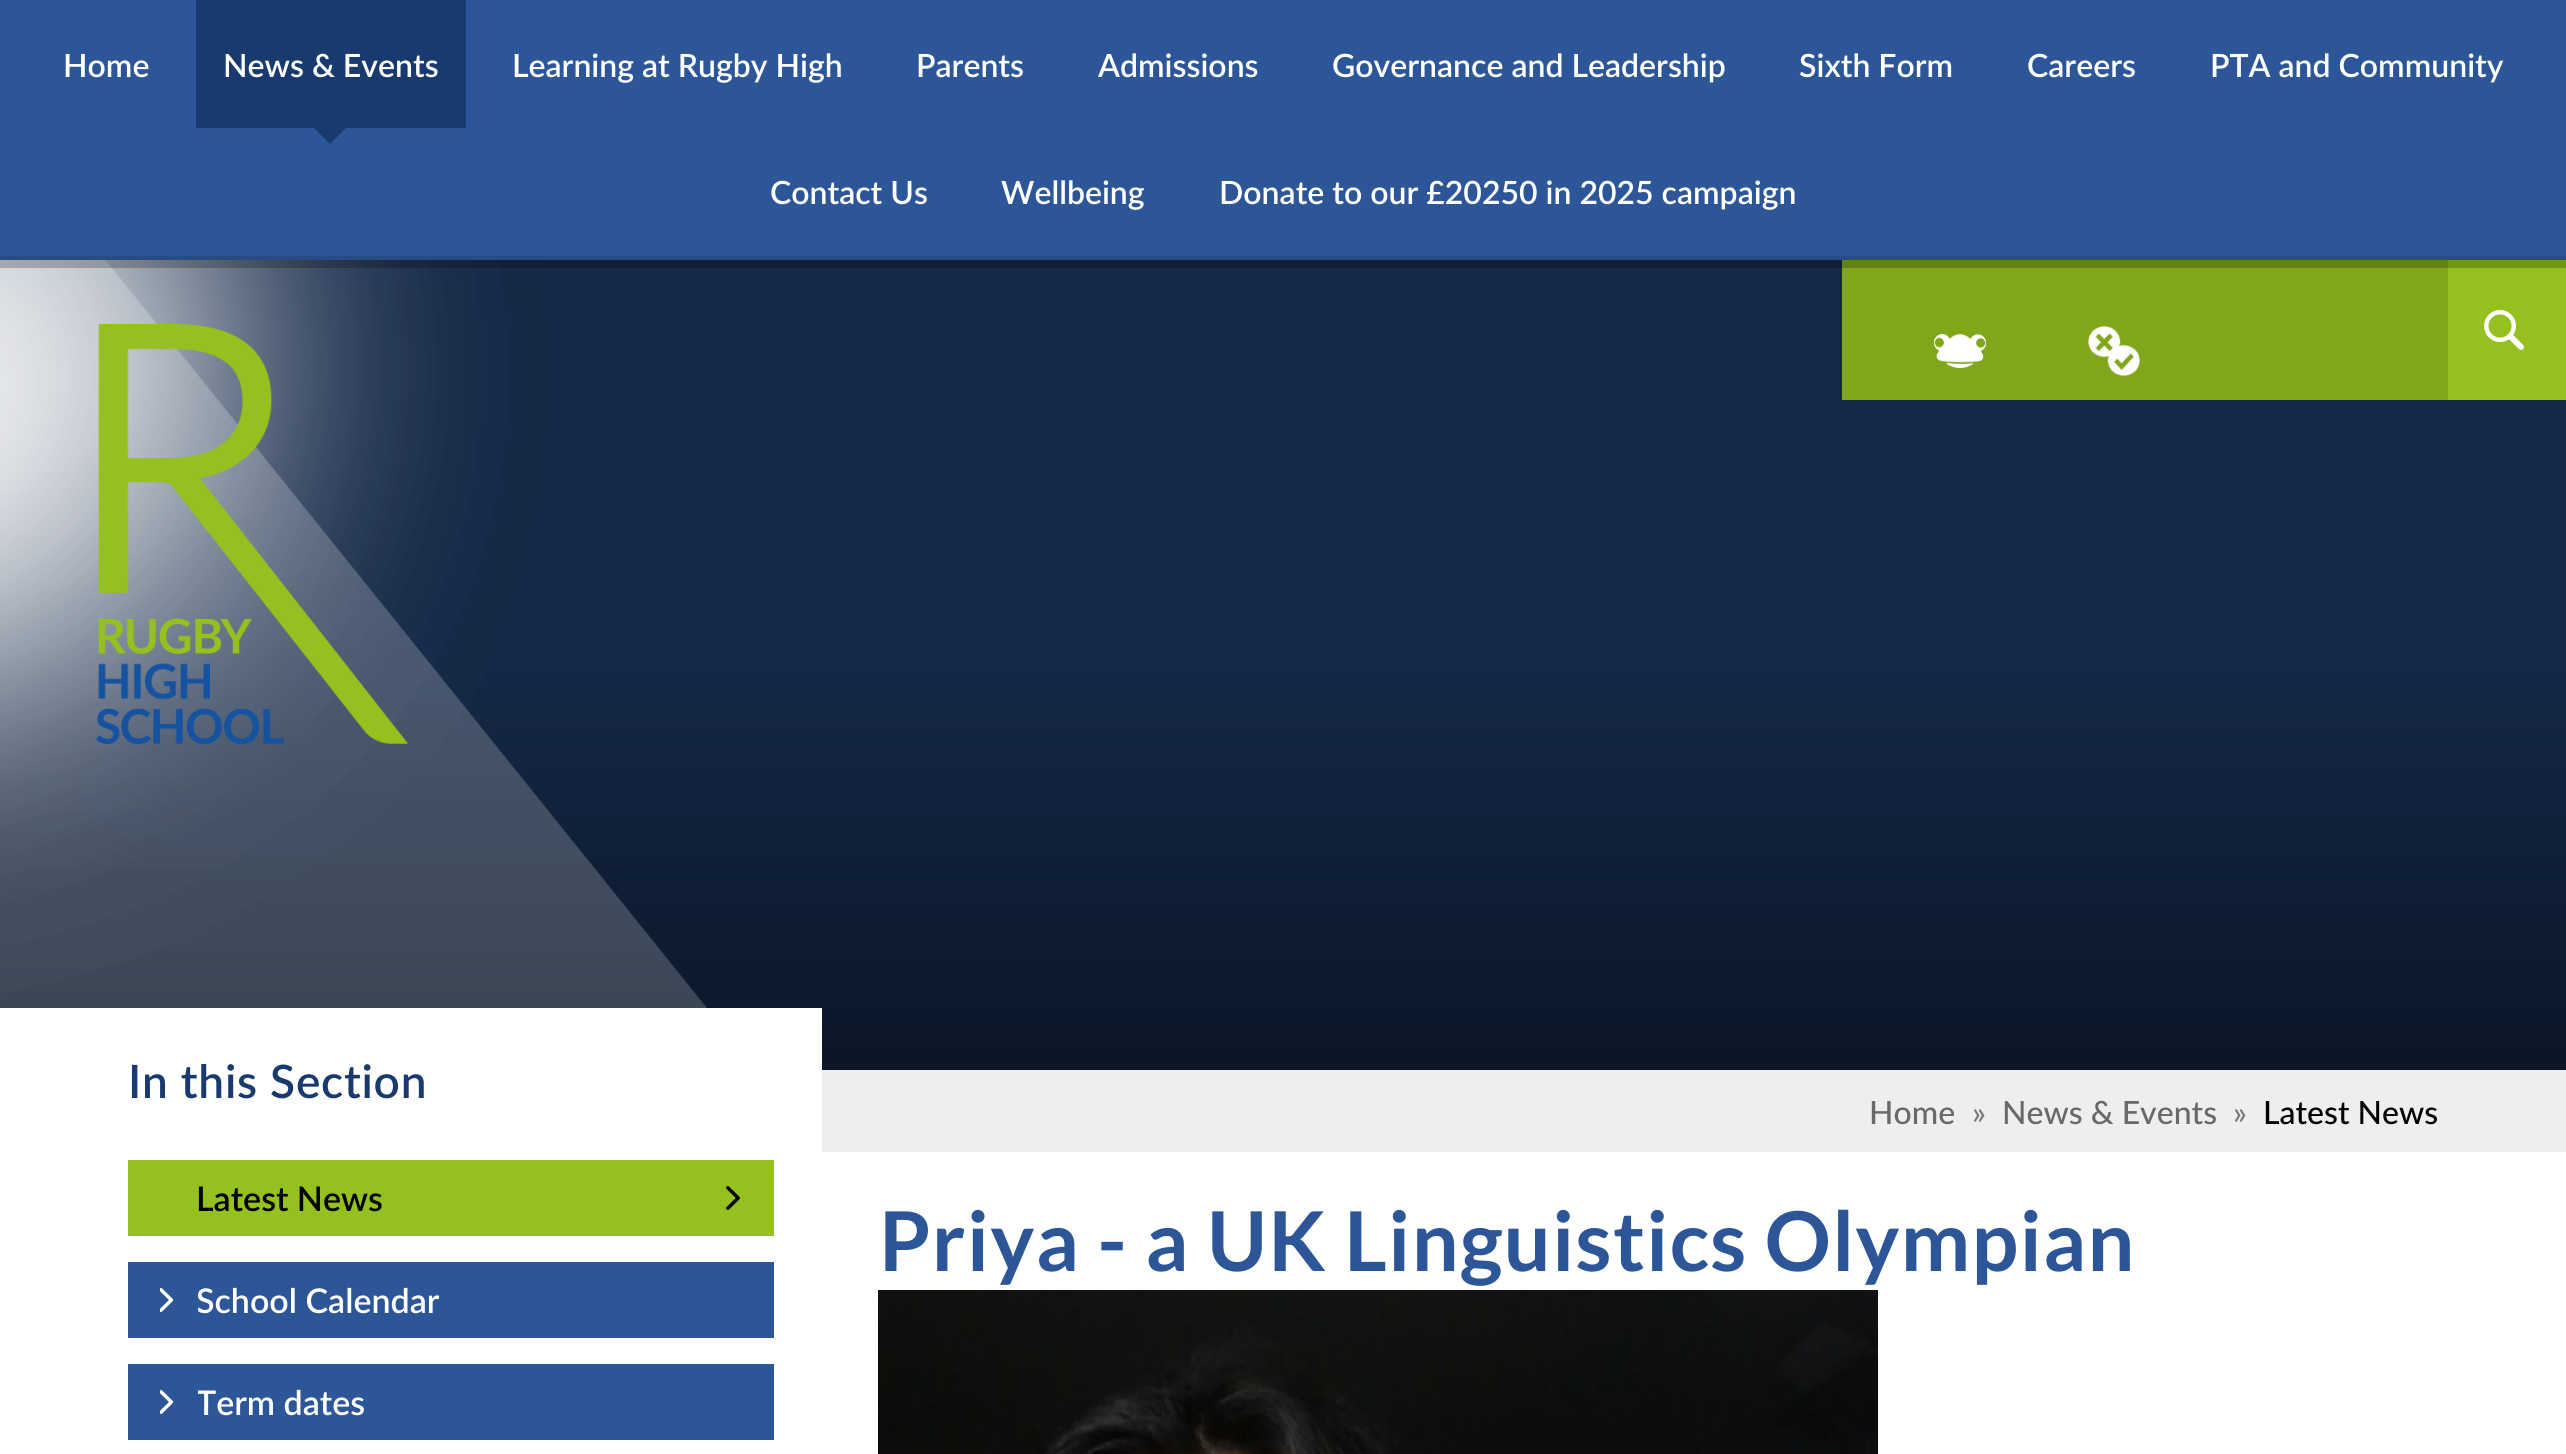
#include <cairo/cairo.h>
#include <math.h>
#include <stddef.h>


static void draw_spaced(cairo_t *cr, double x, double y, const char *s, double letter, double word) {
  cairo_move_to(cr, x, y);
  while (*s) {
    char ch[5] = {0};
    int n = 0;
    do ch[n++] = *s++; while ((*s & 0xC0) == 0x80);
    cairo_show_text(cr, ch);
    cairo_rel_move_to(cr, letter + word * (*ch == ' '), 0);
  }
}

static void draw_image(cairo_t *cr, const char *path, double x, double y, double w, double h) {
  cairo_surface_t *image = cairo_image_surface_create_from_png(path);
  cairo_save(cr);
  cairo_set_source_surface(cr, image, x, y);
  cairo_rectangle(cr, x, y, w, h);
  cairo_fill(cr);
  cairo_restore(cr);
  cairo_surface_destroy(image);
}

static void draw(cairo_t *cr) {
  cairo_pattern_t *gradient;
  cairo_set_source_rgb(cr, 1, 1, 1);
  cairo_paint(cr);
  cairo_set_source_rgb(cr, 44 / 255.0, 86 / 255.0, 151 / 255.0);
  cairo_rectangle(cr, 0, 0, 2566, 256);
  cairo_fill(cr);
  gradient = cairo_pattern_create_linear(1283, 260, 1283, 1070);
  cairo_pattern_add_color_stop_rgba(gradient, 0, 20 / 255.0, 40 / 255.0, 71 / 255.0, 1);
  cairo_pattern_add_color_stop_rgba(gradient, 0.5, 20 / 255.0, 40 / 255.0, 71 / 255.0, 1);
  cairo_pattern_add_color_stop_rgba(gradient, 1, 11 / 255.0, 22 / 255.0, 39 / 255.0, 1);
  cairo_set_source(cr, gradient);
  cairo_pattern_destroy(gradient);
  cairo_rectangle(cr, 0, 260, 2566, 810);
  cairo_fill(cr);
  cairo_set_source_rgb(cr, 128 / 255.0, 167 / 255.0, 26 / 255.0);
  cairo_rectangle(cr, 1842, 260, 606, 140);
  cairo_fill(cr);
  cairo_set_source_rgb(cr, 148 / 255.0, 193 / 255.0, 31 / 255.0);
  cairo_rectangle(cr, 2448, 260, 118, 140);
  cairo_fill(cr);
  draw_image(cr, "images/4.png", 0, 260, 707, 748);
  cairo_set_source_rgba(cr, 0, 0, 0, 0.23);
  cairo_rectangle(cr, 0, 260, 2566, 8);
  cairo_fill(cr);
  cairo_set_source_rgb(cr, 38 / 255.0, 75 / 255.0, 133 / 255.0);
  cairo_rectangle(cr, 0, 256, 2566, 4);
  cairo_fill(cr);
  cairo_set_source_rgb(cr, 24 / 255.0, 58 / 255.0, 110 / 255.0);
  cairo_rectangle(cr, 196, 0, 270, 128);
  cairo_fill(cr);
  cairo_new_path(cr);
  cairo_move_to(cr, 314, 128);
  cairo_line_to(cr, 346, 128);
  cairo_line_to(cr, 330, 144);
  cairo_close_path(cr);
  cairo_fill(cr);
  draw_image(cr, "images/1.png", 1934, 334, 52, 34);
  draw_image(cr, "images/2.png", 2088, 326, 52, 50);
  draw_image(cr, "images/3.png", 2484, 310, 40, 40);
  draw_image(cr, "images/5.png", 96, 324, 312, 420);
  cairo_set_source_rgb(cr, 1, 1, 1);
  cairo_rectangle(cr, 0, 1008, 822, 62);
  cairo_fill(cr);
  cairo_set_source_rgb(cr, 148 / 255.0, 193 / 255.0, 31 / 255.0);
  cairo_rectangle(cr, 128, 1160, 646, 76);
  cairo_fill(cr);
  draw_image(cr, "images/6.png", 726, 1186, 14, 24);
  cairo_set_source_rgb(cr, 44 / 255.0, 86 / 255.0, 151 / 255.0);
  cairo_rectangle(cr, 198, 1262, 576, 76);
  cairo_fill(cr);
  cairo_rectangle(cr, 198, 1364, 576, 76);
  cairo_fill(cr);
  draw_image(cr, "images/8.png", 878, 1290, 1000, 164);
  cairo_set_source_rgb(cr, 238 / 255.0, 238 / 255.0, 238 / 255.0);
  cairo_rectangle(cr, 822, 1070, 1744, 82);
  cairo_fill(cr);
  cairo_select_font_face(cr, "Lato SemiBold", CAIRO_FONT_SLANT_NORMAL, CAIRO_FONT_WEIGHT_NORMAL);
  cairo_set_font_size(cr, 32);
  cairo_set_source_rgb(cr, 1, 1, 1);
  cairo_move_to(cr, 63, 77);
  cairo_show_text(cr, "Home");
  cairo_move_to(cr, 223, 77);
  cairo_show_text(cr, "News & Events");
  cairo_move_to(cr, 512, 77);
  cairo_show_text(cr, "Learning at Rugby High");
  cairo_move_to(cr, 916, 77);
  cairo_show_text(cr, "Parents");
  cairo_move_to(cr, 1098, 77);
  cairo_show_text(cr, "Admissions");
  cairo_move_to(cr, 1332, 77);
  cairo_show_text(cr, "Governance and Leadership");
  cairo_move_to(cr, 1799, 77);
  cairo_show_text(cr, "Sixth Form");
  cairo_move_to(cr, 2027, 77);
  cairo_show_text(cr, "Careers");
  cairo_move_to(cr, 2210, 77);
  cairo_show_text(cr, "PTA and Community");
  cairo_move_to(cr, 770, 204);
  cairo_show_text(cr, "Contact Us");
  cairo_move_to(cr, 1001, 204);
  cairo_show_text(cr, "Wellbeing");
  cairo_move_to(cr, 1219, 204);
  cairo_show_text(cr, "Donate to our £20250 in 2025 campaign");
  cairo_set_font_size(cr, 46);
  cairo_set_source_rgb(cr, 24 / 255.0, 58 / 255.0, 110 / 255.0);
  draw_spaced(cr, 128, 1098, "In this Section", 0.75, 0);
  cairo_set_font_size(cr, 34);
  cairo_set_source_rgb(cr, 0, 0, 0);
  cairo_move_to(cr, 196, 1211);
  cairo_show_text(cr, "Latest News");
  cairo_set_source_rgb(cr, 1, 1, 1);
  cairo_move_to(cr, 196, 1313);
  cairo_show_text(cr, "School Calendar");
  cairo_set_source_rgb(cr, 44 / 255.0, 86 / 255.0, 151 / 255.0);
  cairo_rectangle(cr, 128, 1262, 70, 76);
  cairo_fill(cr);
  draw_image(cr, "images/7.png", 160, 1288, 14, 24);
  cairo_set_source_rgb(cr, 1, 1, 1);
  cairo_move_to(cr, 196, 1415);
  cairo_show_text(cr, "Term dates");
  cairo_set_source_rgb(cr, 44 / 255.0, 86 / 255.0, 151 / 255.0);
  cairo_rectangle(cr, 128, 1364, 70, 76);
  cairo_fill(cr);
  draw_image(cr, "images/7.png", 160, 1390, 14, 24);
  cairo_select_font_face(cr, "Lato", CAIRO_FONT_SLANT_NORMAL, CAIRO_FONT_WEIGHT_BOLD);
  cairo_set_font_size(cr, 82.5);
  draw_spaced(cr, 879, 1271, "Priya - a UK Linguistics Olympian", 1.25, 0);
  cairo_select_font_face(cr, "Lato Medium", CAIRO_FONT_SLANT_NORMAL, CAIRO_FONT_WEIGHT_NORMAL);
  cairo_set_font_size(cr, 32);
  cairo_set_source_rgb(cr, 105 / 255.0, 105 / 255.0, 105 / 255.0);
  cairo_move_to(cr, 1869, 1124);
  cairo_show_text(cr, "Home");
  cairo_set_source_rgb(cr, 121 / 255.0, 121 / 255.0, 121 / 255.0);
  cairo_move_to(cr, 1972, 1124);
  cairo_show_text(cr, "»");
  cairo_set_source_rgb(cr, 105 / 255.0, 105 / 255.0, 105 / 255.0);
  cairo_move_to(cr, 2002, 1124);
  cairo_show_text(cr, "News & Events");
  cairo_set_source_rgb(cr, 121 / 255.0, 121 / 255.0, 121 / 255.0);
  cairo_move_to(cr, 2233, 1124);
  cairo_show_text(cr, "»");
  cairo_set_source_rgb(cr, 0, 0, 0);
  cairo_move_to(cr, 2263, 1124);
  cairo_show_text(cr, "Latest News");
}

int main(void) {
  cairo_surface_t *surface = cairo_image_surface_create(CAIRO_FORMAT_RGB24, 2566, 1454);
  cairo_t *cr = cairo_create(surface);
  cairo_font_options_t *options = cairo_font_options_create();
  cairo_font_options_set_hint_metrics(options, CAIRO_HINT_METRICS_OFF);
  cairo_font_options_set_hint_style(options, CAIRO_HINT_STYLE_NONE);
  cairo_set_font_options(cr, options);
  cairo_set_miter_limit(cr, 4);
  draw(cr);
  cairo_surface_write_to_png(surface, "out.png");
  cairo_font_options_destroy(options);
  cairo_destroy(cr);
  cairo_surface_destroy(surface);
  return 0;
}
